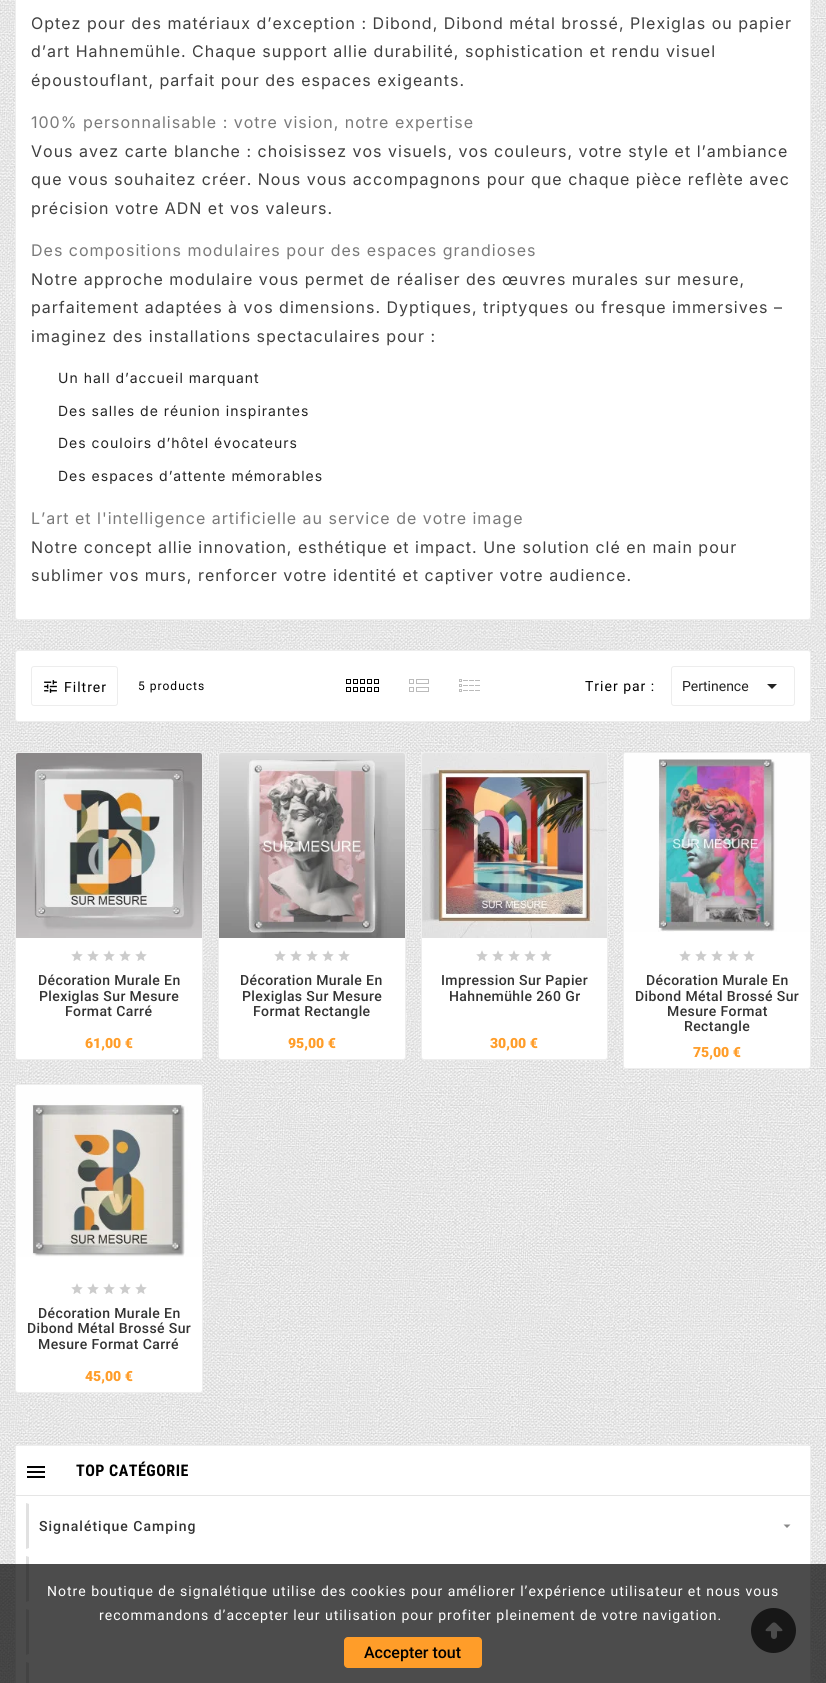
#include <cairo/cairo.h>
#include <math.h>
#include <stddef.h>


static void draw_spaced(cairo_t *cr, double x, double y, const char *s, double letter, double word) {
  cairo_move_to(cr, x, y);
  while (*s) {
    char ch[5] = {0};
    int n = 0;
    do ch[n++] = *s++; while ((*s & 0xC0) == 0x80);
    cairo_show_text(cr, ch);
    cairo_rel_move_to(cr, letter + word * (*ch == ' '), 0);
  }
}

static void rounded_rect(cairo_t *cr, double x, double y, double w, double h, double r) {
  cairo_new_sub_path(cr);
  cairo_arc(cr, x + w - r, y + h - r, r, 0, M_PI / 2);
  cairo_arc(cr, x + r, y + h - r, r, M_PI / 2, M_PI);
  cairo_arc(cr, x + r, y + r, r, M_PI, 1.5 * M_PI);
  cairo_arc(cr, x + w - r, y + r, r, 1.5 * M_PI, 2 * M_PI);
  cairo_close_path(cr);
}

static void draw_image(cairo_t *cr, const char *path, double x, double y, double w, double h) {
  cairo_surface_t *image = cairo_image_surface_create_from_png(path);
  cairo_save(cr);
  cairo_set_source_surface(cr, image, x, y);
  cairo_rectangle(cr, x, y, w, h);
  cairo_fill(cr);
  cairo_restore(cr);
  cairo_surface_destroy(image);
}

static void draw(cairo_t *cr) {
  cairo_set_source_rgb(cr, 245 / 255.0, 245 / 255.0, 245 / 255.0);
  cairo_paint(cr);
  draw_image(cr, "images/1.png", 0, 0, 826, 1683);
  cairo_set_source_rgb(cr, 1, 1, 1);
  rounded_rect(cr, 15, -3, 796, 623, 3);
  cairo_fill(cr);
  rounded_rect(cr, 15.5, -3.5, 795, 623, 2.5);
  cairo_set_source_rgba(cr, 0, 0, 0, 0.07);
  cairo_set_line_width(cr, 1);
  cairo_stroke(cr);
  cairo_set_source_rgb(cr, 1, 1, 1);
  rounded_rect(cr, 15, 650, 796, 72, 3);
  cairo_fill(cr);
  rounded_rect(cr, 15.5, 650.5, 795, 71, 2.5);
  cairo_set_source_rgba(cr, 0, 0, 0, 0.07);
  cairo_stroke(cr);
  rounded_rect(cr, 31.5, 666.5, 86, 39, 2.5);
  cairo_set_source_rgb(cr, 237 / 255.0, 237 / 255.0, 237 / 255.0);
  cairo_stroke(cr);
  draw_image(cr, "images/2.png", 44, 680, 13, 13);
  draw_image(cr, "images/3.png", 346, 679, 33, 13);
  draw_image(cr, "images/4.png", 409, 679, 20, 13);
  draw_image(cr, "images/5.png", 459, 679, 21, 13);
  rounded_rect(cr, 671.5, 666.5, 123, 39, 2.5);
  cairo_stroke(cr);
  cairo_set_source_rgb(cr, 35 / 255.0, 35 / 255.0, 35 / 255.0);
  cairo_new_path(cr);
  cairo_move_to(cr, 767, 684);
  cairo_line_to(cr, 777, 684);
  cairo_line_to(cr, 772, 689);
  cairo_close_path(cr);
  cairo_fill(cr);
  cairo_set_source_rgb(cr, 1, 1, 1);
  rounded_rect(cr, 15, 752, 188, 308, 3);
  cairo_fill(cr);
  rounded_rect(cr, 15.5, 752.5, 187, 307, 2.5);
  cairo_set_source_rgba(cr, 0, 0, 0, 0.07);
  cairo_stroke(cr);
  draw_image(cr, "images/6.png", 16, 753, 186, 185);
  draw_image(cr, "images/7.png", 71, 950, 12, 11);
  draw_image(cr, "images/7.png", 87, 950, 12, 11);
  draw_image(cr, "images/7.png", 103, 950, 12, 11);
  draw_image(cr, "images/7.png", 119, 950, 12, 11);
  draw_image(cr, "images/7.png", 135, 950, 12, 11);
  cairo_set_source_rgb(cr, 1, 1, 1);
  rounded_rect(cr, 218, 752, 188, 308, 3);
  cairo_fill(cr);
  rounded_rect(cr, 218.5, 752.5, 187, 307, 2.5);
  cairo_set_source_rgba(cr, 0, 0, 0, 0.07);
  cairo_stroke(cr);
  draw_image(cr, "images/8.png", 219, 753, 186, 185);
  draw_image(cr, "images/7.png", 274, 950, 12, 11);
  draw_image(cr, "images/7.png", 290, 950, 12, 11);
  draw_image(cr, "images/7.png", 306, 950, 12, 11);
  draw_image(cr, "images/7.png", 322, 950, 12, 11);
  draw_image(cr, "images/7.png", 338, 950, 12, 11);
  cairo_set_source_rgb(cr, 1, 1, 1);
  rounded_rect(cr, 421, 752, 187, 308, 3);
  cairo_fill(cr);
  rounded_rect(cr, 421.5, 752.5, 186, 307, 2.5);
  cairo_set_source_rgba(cr, 0, 0, 0, 0.07);
  cairo_stroke(cr);
  draw_image(cr, "images/9.png", 422, 753, 185, 185);
  draw_image(cr, "images/7.png", 476, 950, 12, 11);
  draw_image(cr, "images/7.png", 492, 950, 12, 11);
  draw_image(cr, "images/7.png", 508, 950, 12, 11);
  draw_image(cr, "images/7.png", 524, 950, 12, 11);
  draw_image(cr, "images/7.png", 540, 950, 12, 11);
  cairo_set_source_rgb(cr, 1, 1, 1);
  rounded_rect(cr, 623, 752, 188, 317, 3);
  cairo_fill(cr);
  rounded_rect(cr, 623.5, 752.5, 187, 316, 2.5);
  cairo_set_source_rgba(cr, 0, 0, 0, 0.07);
  cairo_stroke(cr);
  draw_image(cr, "images/10.png", 624, 753, 186, 179);
  draw_image(cr, "images/7.png", 679, 950, 12, 11);
  draw_image(cr, "images/7.png", 695, 950, 12, 11);
  draw_image(cr, "images/7.png", 711, 950, 12, 11);
  draw_image(cr, "images/7.png", 727, 950, 12, 11);
  draw_image(cr, "images/7.png", 743, 950, 12, 11);
  cairo_set_source_rgb(cr, 1, 1, 1);
  rounded_rect(cr, 15, 1084, 188, 309, 3);
  cairo_fill(cr);
  rounded_rect(cr, 15.5, 1084.5, 187, 308, 2.5);
  cairo_set_source_rgba(cr, 0, 0, 0, 0.07);
  cairo_stroke(cr);
  draw_image(cr, "images/11.png", 16, 1085, 186, 172);
  draw_image(cr, "images/7.png", 71, 1283, 12, 11);
  draw_image(cr, "images/7.png", 87, 1283, 12, 11);
  draw_image(cr, "images/7.png", 103, 1283, 12, 11);
  draw_image(cr, "images/7.png", 119, 1283, 12, 11);
  draw_image(cr, "images/7.png", 135, 1283, 12, 11);
  cairo_set_source_rgb(cr, 1, 1, 1);
  rounded_rect(cr, 15, 1445, 796, 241, 3);
  cairo_fill(cr);
  rounded_rect(cr, 15.5, 1445.5, 795, 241, 2.5);
  cairo_set_source_rgba(cr, 0, 0, 0, 0.07);
  cairo_stroke(cr);
  cairo_set_source_rgb(cr, 1, 1, 1);
  cairo_rectangle(cr, 16, 1446, 794, 1);
  cairo_fill(cr);
  cairo_set_source_rgb(cr, 229 / 255.0, 229 / 255.0, 229 / 255.0);
  cairo_rectangle(cr, 16, 1495, 794, 1);
  cairo_fill(cr);
  draw_image(cr, "images/12.png", 27, 1466, 18, 12);
  cairo_set_source_rgb(cr, 225 / 255.0, 225 / 255.0, 225 / 255.0);
  cairo_new_path(cr);
  cairo_move_to(cr, 26, 1549);
  cairo_line_to(cr, 26, 1503);
  cairo_line_to(cr, 29, 1504);
  cairo_line_to(cr, 29, 1548);
  cairo_close_path(cr);
  cairo_fill(cr);
  cairo_set_source_rgb(cr, 136 / 255.0, 136 / 255.0, 136 / 255.0);
  cairo_new_path(cr);
  cairo_move_to(cr, 783.5, 1524.5);
  cairo_line_to(cr, 790.5, 1524.5);
  cairo_line_to(cr, 787, 1528);
  cairo_close_path(cr);
  cairo_fill(cr);
  cairo_set_source_rgb(cr, 225 / 255.0, 225 / 255.0, 225 / 255.0);
  cairo_new_path(cr);
  cairo_move_to(cr, 26, 1602);
  cairo_line_to(cr, 26, 1556);
  cairo_line_to(cr, 29, 1557);
  cairo_line_to(cr, 29, 1601);
  cairo_close_path(cr);
  cairo_fill(cr);
  cairo_new_path(cr);
  cairo_move_to(cr, 26, 1655);
  cairo_line_to(cr, 26, 1609);
  cairo_line_to(cr, 29, 1610);
  cairo_line_to(cr, 29, 1654);
  cairo_close_path(cr);
  cairo_fill(cr);
  cairo_new_path(cr);
  cairo_move_to(cr, 26, 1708);
  cairo_line_to(cr, 26, 1662);
  cairo_line_to(cr, 29, 1663);
  cairo_line_to(cr, 29, 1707);
  cairo_close_path(cr);
  cairo_fill(cr);
  cairo_set_source_rgb(cr, 76 / 255.0, 76 / 255.0, 76 / 255.0);
  cairo_arc(cr, 773.5, 1630.5, 22.5, 0, 2 * M_PI);
  cairo_fill(cr);
  draw_image(cr, "images/13.png", 765, 1622, 18, 17);
  cairo_set_source_rgba(cr, 0, 0, 0, 0.7);
  cairo_rectangle(cr, 0, 1564, 826, 119);
  cairo_fill(cr);
  cairo_set_source_rgb(cr, 1, 157 / 255.0, 41 / 255.0);
  rounded_rect(cr, 344, 1637, 138, 31, 4);
  cairo_fill(cr);
  cairo_select_font_face(cr, "Inter", CAIRO_FONT_SLANT_NORMAL, CAIRO_FONT_WEIGHT_NORMAL);
  cairo_set_font_size(cr, 16);
  cairo_set_source_rgb(cr, 64 / 255.0, 64 / 255.0, 64 / 255.0);
  draw_spaced(cr, 31, 29, "Optez pour des matériaux d’exception : Dibond, Dibond métal brossé, Plexiglas ou papier", 1, 0);
  draw_spaced(cr, 31, 57, "d’art Hahnemühle. Chaque support allie durabilité, sophistication et rendu visuel", 1, 0);
  draw_spaced(cr, 31, 86, "époustouflant, parfait pour des espaces exigeants.", 1, 0);
  cairo_set_source_rgb(cr, 122 / 255.0, 122 / 255.0, 122 / 255.0);
  draw_spaced(cr, 31, 128, "100% personnalisable : votre vision, notre expertise", 1, 0);
  cairo_set_source_rgb(cr, 64 / 255.0, 64 / 255.0, 64 / 255.0);
  draw_spaced(cr, 31, 157, "Vous avez carte blanche : choisissez vos visuels, vos couleurs, votre style et l’ambiance", 1, 0);
  draw_spaced(cr, 31, 185, "que vous souhaitez créer. Nous vous accompagnons pour que chaque pièce reflète avec", 1, 0);
  draw_spaced(cr, 31, 214, "précision votre ADN et vos valeurs.", 1, 0);
  cairo_set_source_rgb(cr, 122 / 255.0, 122 / 255.0, 122 / 255.0);
  draw_spaced(cr, 31, 256, "Des compositions modulaires pour des espaces grandioses", 1, 0);
  cairo_set_source_rgb(cr, 64 / 255.0, 64 / 255.0, 64 / 255.0);
  draw_spaced(cr, 31, 285, "Notre approche modulaire vous permet de réaliser des œuvres murales sur mesure,", 1, 0);
  draw_spaced(cr, 31, 313, "parfaitement adaptées à vos dimensions. Dyptiques, triptyques ou fresque immersives –", 1, 0);
  draw_spaced(cr, 31, 342, "imaginez des installations spectaculaires pour :", 1, 0);
  cairo_set_font_size(cr, 14);
  cairo_set_source_rgb(cr, 35 / 255.0, 35 / 255.0, 35 / 255.0);
  draw_spaced(cr, 58, 383, "Un hall d’accueil marquant", 1, 0);
  draw_spaced(cr, 58, 416, "Des salles de réunion inspirantes", 1, 0);
  draw_spaced(cr, 58, 448, "Des couloirs d’hôtel évocateurs", 1, 0);
  draw_spaced(cr, 58, 481, "Des espaces d’attente mémorables", 1, 0);
  cairo_set_font_size(cr, 16);
  cairo_set_source_rgb(cr, 122 / 255.0, 122 / 255.0, 122 / 255.0);
  draw_spaced(cr, 31, 524, "L’art et l'intelligence artificielle au service de votre image", 1, 0);
  cairo_set_source_rgb(cr, 64 / 255.0, 64 / 255.0, 64 / 255.0);
  draw_spaced(cr, 31, 553, "Notre concept allie innovation, esthétique et impact. Une solution clé en main pour", 1, 0);
  draw_spaced(cr, 31, 581, "sublimer vos murs, renforcer votre identité et captiver votre audience.", 1, 0);
  cairo_select_font_face(cr, "Roboto", CAIRO_FONT_SLANT_NORMAL, CAIRO_FONT_WEIGHT_NORMAL);
  cairo_set_font_size(cr, 14);
  cairo_set_source_rgb(cr, 0, 0, 0);
  draw_spaced(cr, 64, 692, "Filtrer", 1, 0);
  cairo_set_font_size(cr, 12);
  draw_spaced(cr, 138, 690, "5 products", 1, 0);
  cairo_set_font_size(cr, 14);
  draw_spaced(cr, 585, 691, "Trier par :", 1, 0);
  cairo_set_source_rgb(cr, 35 / 255.0, 35 / 255.0, 35 / 255.0);
  cairo_move_to(cr, 682, 691);
  cairo_show_text(cr, "Pertinence");
  cairo_select_font_face(cr, "Roboto Medium", CAIRO_FONT_SLANT_NORMAL, CAIRO_FONT_WEIGHT_NORMAL);
  cairo_set_source_rgb(cr, 51 / 255.0, 51 / 255.0, 51 / 255.0);
  draw_spaced(cr, 38, 985, "Décoration Murale En", 0.4, 0);
  draw_spaced(cr, 39, 1001, "Plexiglas Sur Mesure", 0.4, 0);
  draw_spaced(cr, 65, 1016, "Format Carré", 0.4, 0);
  cairo_select_font_face(cr, "Roboto Black", CAIRO_FONT_SLANT_NORMAL, CAIRO_FONT_WEIGHT_NORMAL);
  cairo_set_source_rgb(cr, 1, 157 / 255.0, 41 / 255.0);
  cairo_move_to(cr, 85, 1048);
  cairo_show_text(cr, "61,00 €");
  cairo_select_font_face(cr, "Roboto Medium", CAIRO_FONT_SLANT_NORMAL, CAIRO_FONT_WEIGHT_NORMAL);
  cairo_set_source_rgb(cr, 51 / 255.0, 51 / 255.0, 51 / 255.0);
  draw_spaced(cr, 240, 985, "Décoration Murale En", 0.4, 0);
  draw_spaced(cr, 242, 1001, "Plexiglas Sur Mesure", 0.4, 0);
  draw_spaced(cr, 253, 1016, "Format Rectangle", 0.4, 0);
  cairo_select_font_face(cr, "Roboto Black", CAIRO_FONT_SLANT_NORMAL, CAIRO_FONT_WEIGHT_NORMAL);
  cairo_set_source_rgb(cr, 1, 157 / 255.0, 41 / 255.0);
  cairo_move_to(cr, 288, 1048);
  cairo_show_text(cr, "95,00 €");
  cairo_select_font_face(cr, "Roboto Medium", CAIRO_FONT_SLANT_NORMAL, CAIRO_FONT_WEIGHT_NORMAL);
  cairo_set_source_rgb(cr, 51 / 255.0, 51 / 255.0, 51 / 255.0);
  draw_spaced(cr, 441, 985, "Impression Sur Papier", 0.4, 0);
  draw_spaced(cr, 449, 1001, "Hahnemühle 260 Gr", 0.4, 0);
  cairo_select_font_face(cr, "Roboto Black", CAIRO_FONT_SLANT_NORMAL, CAIRO_FONT_WEIGHT_NORMAL);
  cairo_set_source_rgb(cr, 1, 157 / 255.0, 41 / 255.0);
  cairo_move_to(cr, 490, 1048);
  cairo_show_text(cr, "30,00 €");
  cairo_select_font_face(cr, "Roboto Medium", CAIRO_FONT_SLANT_NORMAL, CAIRO_FONT_WEIGHT_NORMAL);
  cairo_set_source_rgb(cr, 51 / 255.0, 51 / 255.0, 51 / 255.0);
  draw_spaced(cr, 646, 985, "Décoration Murale En", 0.4, 0);
  draw_spaced(cr, 635, 1001, "Dibond Métal Brossé Sur", 0.4, 0);
  draw_spaced(cr, 667, 1016, "Mesure Format", 0.4, 0);
  draw_spaced(cr, 684, 1031, "Rectangle", 0.4, 0);
  cairo_select_font_face(cr, "Roboto Black", CAIRO_FONT_SLANT_NORMAL, CAIRO_FONT_WEIGHT_NORMAL);
  cairo_set_source_rgb(cr, 1, 157 / 255.0, 41 / 255.0);
  cairo_move_to(cr, 693, 1057);
  cairo_show_text(cr, "75,00 €");
  cairo_select_font_face(cr, "Roboto Medium", CAIRO_FONT_SLANT_NORMAL, CAIRO_FONT_WEIGHT_NORMAL);
  cairo_set_source_rgb(cr, 51 / 255.0, 51 / 255.0, 51 / 255.0);
  draw_spaced(cr, 38, 1318, "Décoration Murale En", 0.4, 0);
  draw_spaced(cr, 27, 1333, "Dibond Métal Brossé Sur", 0.4, 0);
  draw_spaced(cr, 38, 1349, "Mesure Format Carré", 0.4, 0);
  cairo_select_font_face(cr, "Roboto Black", CAIRO_FONT_SLANT_NORMAL, CAIRO_FONT_WEIGHT_NORMAL);
  cairo_set_source_rgb(cr, 1, 157 / 255.0, 41 / 255.0);
  cairo_move_to(cr, 85, 1381);
  cairo_show_text(cr, "45,00 €");
  cairo_select_font_face(cr, "Roboto Condensed", CAIRO_FONT_SLANT_NORMAL, CAIRO_FONT_WEIGHT_BOLD);
  cairo_set_font_size(cr, 16);
  cairo_set_source_rgb(cr, 0, 0, 0);
  draw_spaced(cr, 76, 1476, "TOP CATÉGORIE", 0.5, 0);
  cairo_select_font_face(cr, "Roboto Medium", CAIRO_FONT_SLANT_NORMAL, CAIRO_FONT_WEIGHT_NORMAL);
  cairo_set_font_size(cr, 14);
  cairo_set_source_rgb(cr, 51 / 255.0, 51 / 255.0, 51 / 255.0);
  draw_spaced(cr, 39, 1531, "Signalétique Camping", 1, 0);
  cairo_select_font_face(cr, "Roboto", CAIRO_FONT_SLANT_NORMAL, CAIRO_FONT_WEIGHT_NORMAL);
  cairo_set_source_rgb(cr, 1, 1, 1);
  draw_spaced(cr, 47, 1596, "Notre boutique de signalétique utilise des cookies pour améliorer l’expérience utilisateur et nous vous", 1, 0);
  draw_spaced(cr, 99, 1620, "recommandons d’accepter leur utilisation pour profiter pleinement de votre navigation.", 1, 0);
  cairo_select_font_face(cr, "Roboto Medium", CAIRO_FONT_SLANT_NORMAL, CAIRO_FONT_WEIGHT_NORMAL);
  cairo_set_font_size(cr, 16);
  cairo_set_source_rgb(cr, 0, 0, 0);
  cairo_move_to(cr, 364, 1658);
  cairo_show_text(cr, "Accepter tout");
}

int main(void) {
  cairo_surface_t *surface = cairo_image_surface_create(CAIRO_FORMAT_RGB24, 826, 1683);
  cairo_t *cr = cairo_create(surface);
  cairo_font_options_t *options = cairo_font_options_create();
  cairo_font_options_set_hint_metrics(options, CAIRO_HINT_METRICS_OFF);
  cairo_font_options_set_hint_style(options, CAIRO_HINT_STYLE_NONE);
  cairo_set_font_options(cr, options);
  cairo_set_miter_limit(cr, 4);
  draw(cr);
  cairo_surface_write_to_png(surface, "out.png");
  cairo_font_options_destroy(options);
  cairo_destroy(cr);
  cairo_surface_destroy(surface);
  return 0;
}
